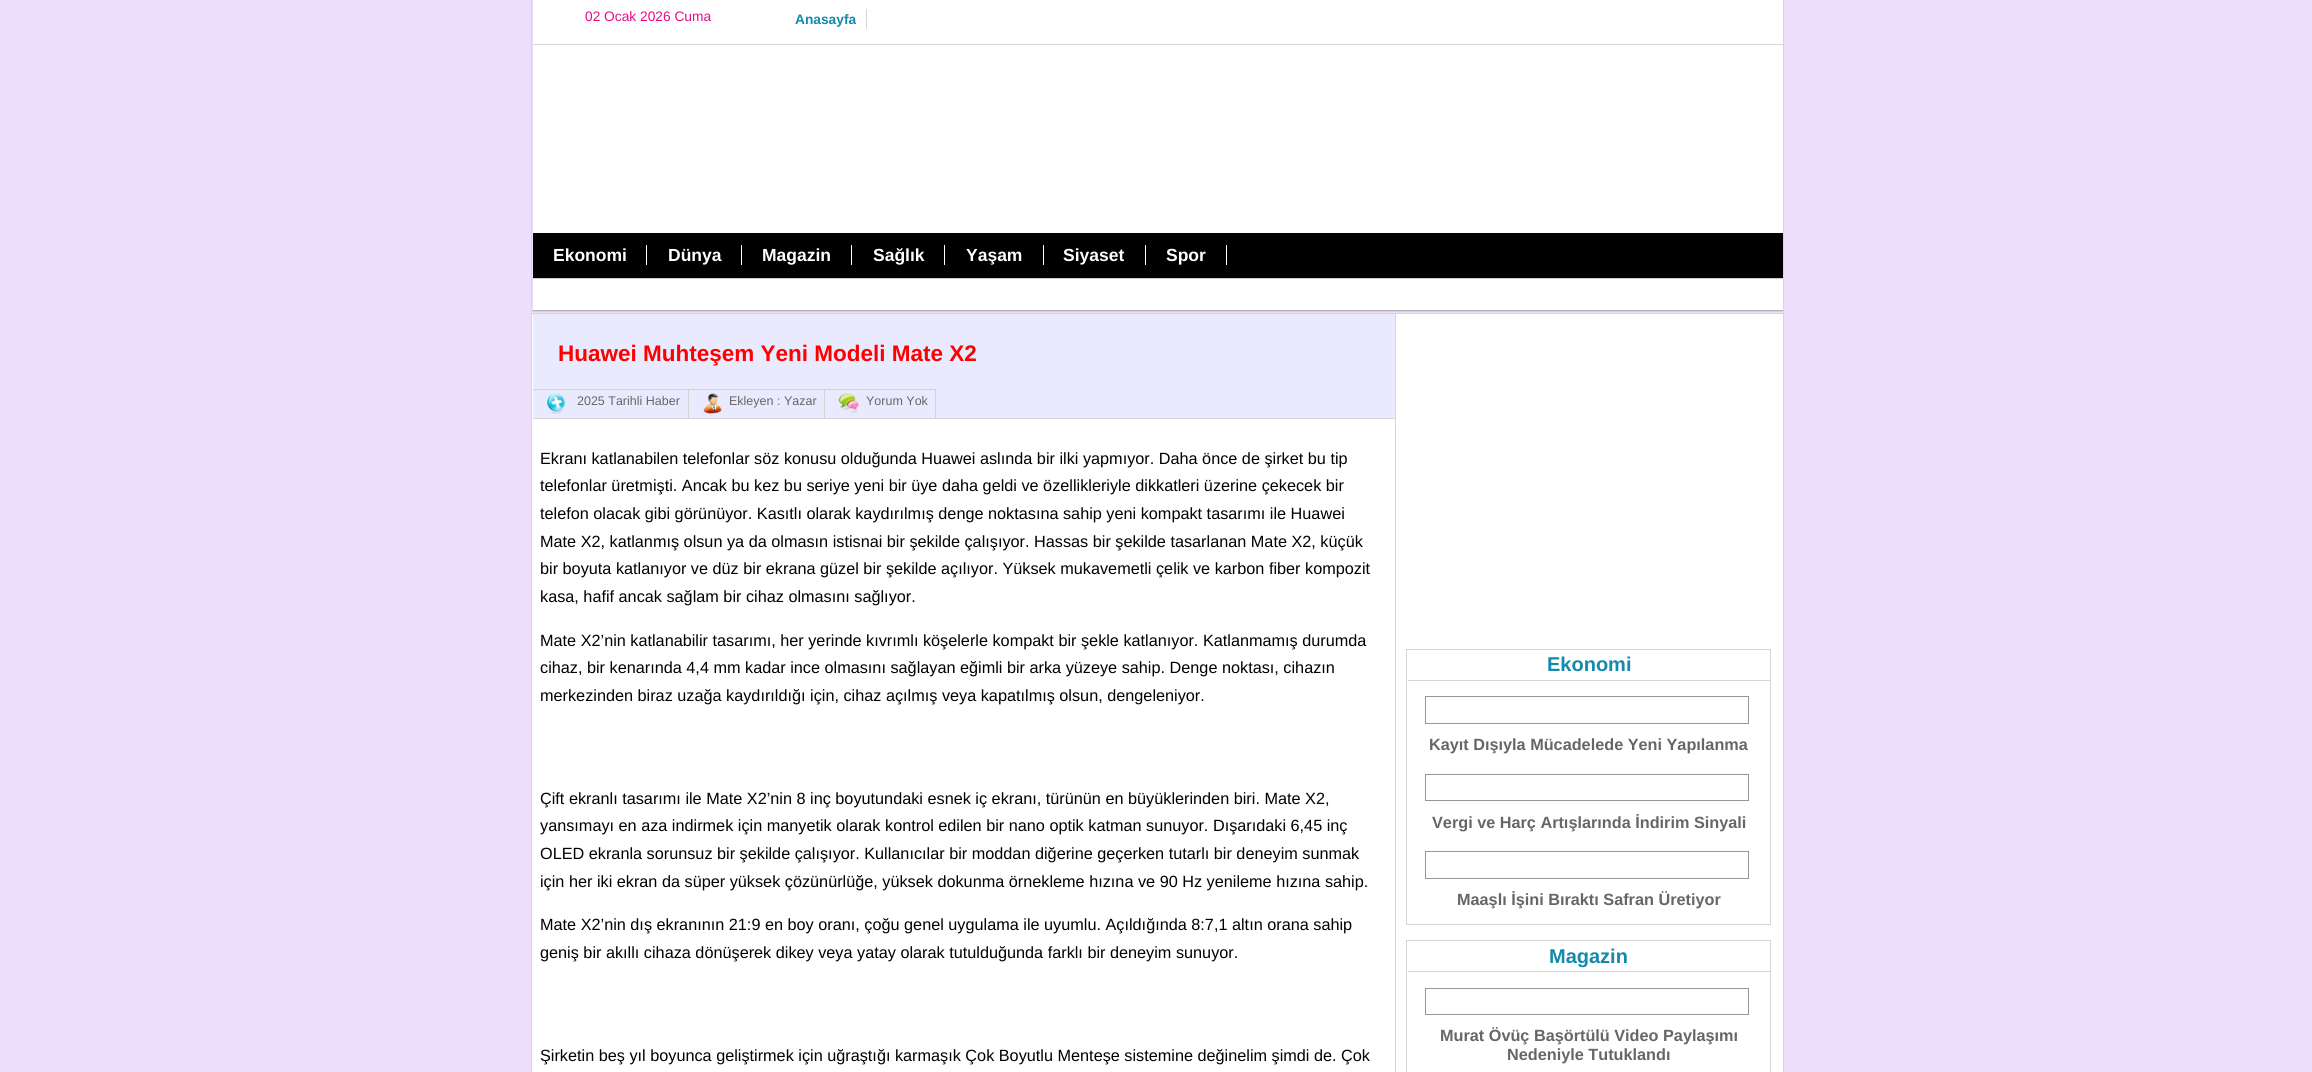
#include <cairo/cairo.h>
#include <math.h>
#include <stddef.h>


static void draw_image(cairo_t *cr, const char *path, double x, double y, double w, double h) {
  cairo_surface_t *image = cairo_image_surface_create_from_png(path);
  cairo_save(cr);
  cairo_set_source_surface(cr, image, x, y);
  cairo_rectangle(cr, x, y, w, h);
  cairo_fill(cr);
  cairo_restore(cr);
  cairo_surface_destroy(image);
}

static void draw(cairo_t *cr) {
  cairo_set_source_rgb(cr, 239 / 255.0, 221 / 255.0, 252 / 255.0);
  cairo_paint(cr);
  cairo_set_source_rgb(cr, 1, 1, 1);
  cairo_rectangle(cr, 533, 0, 1250, 310);
  cairo_fill(cr);
  cairo_set_source_rgb(cr, 213 / 255.0, 213 / 255.0, 213 / 255.0);
  cairo_rectangle(cr, 1783, 0, 1, 313);
  cairo_fill(cr);
  cairo_rectangle(cr, 531, 311, 1253, 1);
  cairo_fill(cr);
  cairo_rectangle(cr, 531, 0, 1, 313);
  cairo_fill(cr);
  cairo_rectangle(cr, 533, 44, 1250, 1);
  cairo_fill(cr);
  cairo_rectangle(cr, 866, 9, 1, 20);
  cairo_fill(cr);
  cairo_set_source_rgb(cr, 0, 0, 0);
  cairo_rectangle(cr, 533, 233, 1250, 45);
  cairo_fill(cr);
  cairo_set_source_rgb(cr, 204 / 255.0, 204 / 255.0, 204 / 255.0);
  cairo_rectangle(cr, 533, 278, 1250, 1);
  cairo_fill(cr);
  cairo_set_source_rgb(cr, 1, 1, 1);
  cairo_rectangle(cr, 646, 245, 1, 20);
  cairo_fill(cr);
  cairo_rectangle(cr, 741, 245, 1, 20);
  cairo_fill(cr);
  cairo_rectangle(cr, 851, 245, 1, 20);
  cairo_fill(cr);
  cairo_rectangle(cr, 944, 245, 1, 20);
  cairo_fill(cr);
  cairo_rectangle(cr, 1043, 245, 1, 20);
  cairo_fill(cr);
  cairo_rectangle(cr, 1145, 245, 1, 20);
  cairo_fill(cr);
  cairo_rectangle(cr, 1226, 245, 1, 20);
  cairo_fill(cr);
  cairo_set_source_rgb(cr, 176 / 255.0, 176 / 255.0, 176 / 255.0);
  cairo_rectangle(cr, 533, 310, 1250, 1);
  cairo_fill(cr);
  cairo_set_source_rgb(cr, 1, 1, 1);
  cairo_rectangle(cr, 531.5, 313.5, 1252, 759);
  cairo_fill_preserve(cr);
  cairo_set_source_rgb(cr, 213 / 255.0, 213 / 255.0, 213 / 255.0);
  cairo_set_line_width(cr, 1);
  cairo_stroke(cr);
  cairo_rectangle(cr, 1395, 314, 1, 758);
  cairo_fill(cr);
  cairo_set_source_rgb(cr, 234 / 255.0, 234 / 255.0, 1);
  cairo_rectangle(cr, 533, 314, 862, 104);
  cairo_fill(cr);
  cairo_set_source_rgb(cr, 213 / 255.0, 213 / 255.0, 213 / 255.0);
  cairo_rectangle(cr, 533, 418, 862, 1);
  cairo_fill(cr);
  cairo_rectangle(cr, 533, 389, 403, 1);
  cairo_fill(cr);
  cairo_rectangle(cr, 688, 389, 1, 29);
  cairo_fill(cr);
  draw_image(cr, "images/1.png", 547, 393, 18, 21);
  cairo_rectangle(cr, 824, 389, 1, 29);
  cairo_fill(cr);
  draw_image(cr, "images/2.png", 703, 393, 19, 21);
  cairo_rectangle(cr, 935, 389, 1, 29);
  cairo_fill(cr);
  draw_image(cr, "images/3.png", 838, 393, 21, 20);
  cairo_rectangle(cr, 1406.5, 649.5, 364, 275);
  cairo_stroke(cr);
  cairo_rectangle(cr, 1408, 680, 362, 1);
  cairo_fill(cr);
  cairo_rectangle(cr, 1425.5, 696.5, 323, 27);
  cairo_set_source_rgb(cr, 150 / 255.0, 150 / 255.0, 150 / 255.0);
  cairo_stroke(cr);
  cairo_rectangle(cr, 1425.5, 774.5, 323, 26);
  cairo_stroke(cr);
  cairo_rectangle(cr, 1425.5, 851.5, 323, 27);
  cairo_stroke(cr);
  cairo_rectangle(cr, 1406.5, 940.5, 364, 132);
  cairo_set_source_rgb(cr, 213 / 255.0, 213 / 255.0, 213 / 255.0);
  cairo_stroke(cr);
  cairo_rectangle(cr, 1408, 971, 362, 1);
  cairo_fill(cr);
  cairo_rectangle(cr, 1425.5, 988.5, 323, 26);
  cairo_set_source_rgb(cr, 150 / 255.0, 150 / 255.0, 150 / 255.0);
  cairo_stroke(cr);
  cairo_select_font_face(cr, "Liberation Sans", CAIRO_FONT_SLANT_NORMAL, CAIRO_FONT_WEIGHT_NORMAL);
  cairo_set_font_size(cr, 13.75);
  cairo_set_source_rgb(cr, 235 / 255.0, 8 / 255.0, 138 / 255.0);
  cairo_move_to(cr, 585, 21);
  cairo_show_text(cr, "02 Ocak 2026 Cuma");
  cairo_select_font_face(cr, "Liberation Sans", CAIRO_FONT_SLANT_NORMAL, CAIRO_FONT_WEIGHT_BOLD);
  cairo_set_source_rgb(cr, 19 / 255.0, 138 / 255.0, 172 / 255.0);
  cairo_move_to(cr, 795, 24);
  cairo_show_text(cr, "Anasayfa");
  cairo_set_font_size(cr, 17.5);
  cairo_set_source_rgb(cr, 1, 1, 1);
  cairo_move_to(cr, 553, 261);
  cairo_show_text(cr, "Ekonomi");
  cairo_move_to(cr, 668, 261);
  cairo_show_text(cr, "Dünya");
  cairo_move_to(cr, 762, 261);
  cairo_show_text(cr, "Magazin");
  cairo_move_to(cr, 873, 261);
  cairo_show_text(cr, "Sağlık");
  cairo_move_to(cr, 966, 261);
  cairo_show_text(cr, "Yaşam");
  cairo_move_to(cr, 1063, 261);
  cairo_show_text(cr, "Siyaset");
  cairo_move_to(cr, 1166, 261);
  cairo_show_text(cr, "Spor");
  cairo_set_font_size(cr, 22.5);
  cairo_set_source_rgb(cr, 1, 0, 0);
  cairo_move_to(cr, 558, 361);
  cairo_show_text(cr, "Huawei Muhteşem Yeni Modeli Mate X2");
  cairo_select_font_face(cr, "Liberation Sans", CAIRO_FONT_SLANT_NORMAL, CAIRO_FONT_WEIGHT_NORMAL);
  cairo_set_font_size(cr, 12.5);
  cairo_set_source_rgb(cr, 102 / 255.0, 102 / 255.0, 102 / 255.0);
  cairo_move_to(cr, 577, 405);
  cairo_show_text(cr, "2025 Tarihli Haber");
  cairo_move_to(cr, 729, 405);
  cairo_show_text(cr, "Ekleyen : Yazar");
  cairo_move_to(cr, 866, 405);
  cairo_show_text(cr, "Yorum Yok");
  cairo_set_font_size(cr, 16.25);
  cairo_set_source_rgb(cr, 0, 0, 0);
  cairo_move_to(cr, 540, 464);
  cairo_show_text(cr, "Ekranı katlanabilen telefonlar söz konusu olduğunda Huawei aslında bir ilki yapmıyor. Daha önce de şirket bu tip");
  cairo_move_to(cr, 540, 491);
  cairo_show_text(cr, "telefonlar üretmişti. Ancak bu kez bu seriye yeni bir üye daha geldi ve özellikleriyle dikkatleri üzerine çekecek bir");
  cairo_move_to(cr, 540, 519);
  cairo_show_text(cr, "telefon olacak gibi görünüyor. Kasıtlı olarak kaydırılmış denge noktasına sahip yeni kompakt tasarımı ile Huawei");
  cairo_move_to(cr, 540, 547);
  cairo_show_text(cr, "Mate X2, katlanmış olsun ya da olmasın istisnai bir şekilde çalışıyor. Hassas bir şekilde tasarlanan Mate X2, küçük");
  cairo_move_to(cr, 540, 574);
  cairo_show_text(cr, "bir boyuta katlanıyor ve düz bir ekrana güzel bir şekilde açılıyor. Yüksek mukavemetli çelik ve karbon fiber kompozit");
  cairo_move_to(cr, 540, 602);
  cairo_show_text(cr, "kasa, hafif ancak sağlam bir cihaz olmasını sağlıyor.");
  cairo_move_to(cr, 540, 646);
  cairo_show_text(cr, "Mate X2’nin katlanabilir tasarımı, her yerinde kıvrımlı köşelerle kompakt bir şekle katlanıyor. Katlanmamış durumda");
  cairo_move_to(cr, 540, 673);
  cairo_show_text(cr, "cihaz, bir kenarında 4,4 mm kadar ince olmasını sağlayan eğimli bir arka yüzeye sahip. Denge noktası, cihazın");
  cairo_move_to(cr, 540, 701);
  cairo_show_text(cr, "merkezinden biraz uzağa kaydırıldığı için, cihaz açılmış veya kapatılmış olsun, dengeleniyor.");
  cairo_move_to(cr, 540, 804);
  cairo_show_text(cr, "Çift ekranlı tasarımı ile Mate X2’nin 8 inç boyutundaki esnek iç ekranı, türünün en büyüklerinden biri. Mate X2,");
  cairo_move_to(cr, 540, 831);
  cairo_show_text(cr, "yansımayı en aza indirmek için manyetik olarak kontrol edilen bir nano optik katman sunuyor. Dışarıdaki 6,45 inç");
  cairo_move_to(cr, 540, 859);
  cairo_show_text(cr, "OLED ekranla sorunsuz bir şekilde çalışıyor. Kullanıcılar bir moddan diğerine geçerken tutarlı bir deneyim sunmak");
  cairo_move_to(cr, 540, 887);
  cairo_show_text(cr, "için her iki ekran da süper yüksek çözünürlüğe, yüksek dokunma örnekleme hızına ve 90 Hz yenileme hızına sahip.");
  cairo_move_to(cr, 540, 930);
  cairo_show_text(cr, "Mate X2’nin dış ekranının 21:9 en boy oranı, çoğu genel uygulama ile uyumlu. Açıldığında 8:7,1 altın orana sahip");
  cairo_move_to(cr, 540, 958);
  cairo_show_text(cr, "geniş bir akıllı cihaza dönüşerek dikey veya yatay olarak tutulduğunda farklı bir deneyim sunuyor.");
  cairo_move_to(cr, 540, 1061);
  cairo_show_text(cr, "Şirketin beş yıl boyunca geliştirmek için uğraştığı karmaşık Çok Boyutlu Menteşe sistemine değinelim şimdi de. Çok");
  cairo_select_font_face(cr, "Liberation Sans", CAIRO_FONT_SLANT_NORMAL, CAIRO_FONT_WEIGHT_BOLD);
  cairo_set_font_size(cr, 20);
  cairo_set_source_rgb(cr, 19 / 255.0, 138 / 255.0, 172 / 255.0);
  cairo_move_to(cr, 1547, 671);
  cairo_show_text(cr, "Ekonomi");
  cairo_set_font_size(cr, 16.25);
  cairo_set_source_rgb(cr, 102 / 255.0, 102 / 255.0, 102 / 255.0);
  cairo_move_to(cr, 1429, 750);
  cairo_show_text(cr, "Kayıt Dışıyla Mücadelede Yeni Yapılanma");
  cairo_move_to(cr, 1432, 828);
  cairo_show_text(cr, "Vergi ve Harç Artışlarında İndirim Sinyali");
  cairo_move_to(cr, 1457, 905);
  cairo_show_text(cr, "Maaşlı İşini Bıraktı Safran Üretiyor");
  cairo_set_font_size(cr, 20);
  cairo_set_source_rgb(cr, 19 / 255.0, 138 / 255.0, 172 / 255.0);
  cairo_move_to(cr, 1549, 963);
  cairo_show_text(cr, "Magazin");
  cairo_set_font_size(cr, 16.25);
  cairo_set_source_rgb(cr, 102 / 255.0, 102 / 255.0, 102 / 255.0);
  cairo_move_to(cr, 1440, 1041);
  cairo_show_text(cr, "Murat Övüç Başörtülü Video Paylaşımı");
  cairo_move_to(cr, 1507, 1060);
  cairo_show_text(cr, "Nedeniyle Tutuklandı");
}

int main(void) {
  cairo_surface_t *surface = cairo_image_surface_create(CAIRO_FORMAT_RGB24, 2312, 1072);
  cairo_t *cr = cairo_create(surface);
  cairo_font_options_t *options = cairo_font_options_create();
  cairo_font_options_set_hint_metrics(options, CAIRO_HINT_METRICS_OFF);
  cairo_font_options_set_hint_style(options, CAIRO_HINT_STYLE_NONE);
  cairo_set_font_options(cr, options);
  cairo_set_miter_limit(cr, 4);
  draw(cr);
  cairo_surface_write_to_png(surface, "out.png");
  cairo_font_options_destroy(options);
  cairo_destroy(cr);
  cairo_surface_destroy(surface);
  return 0;
}
